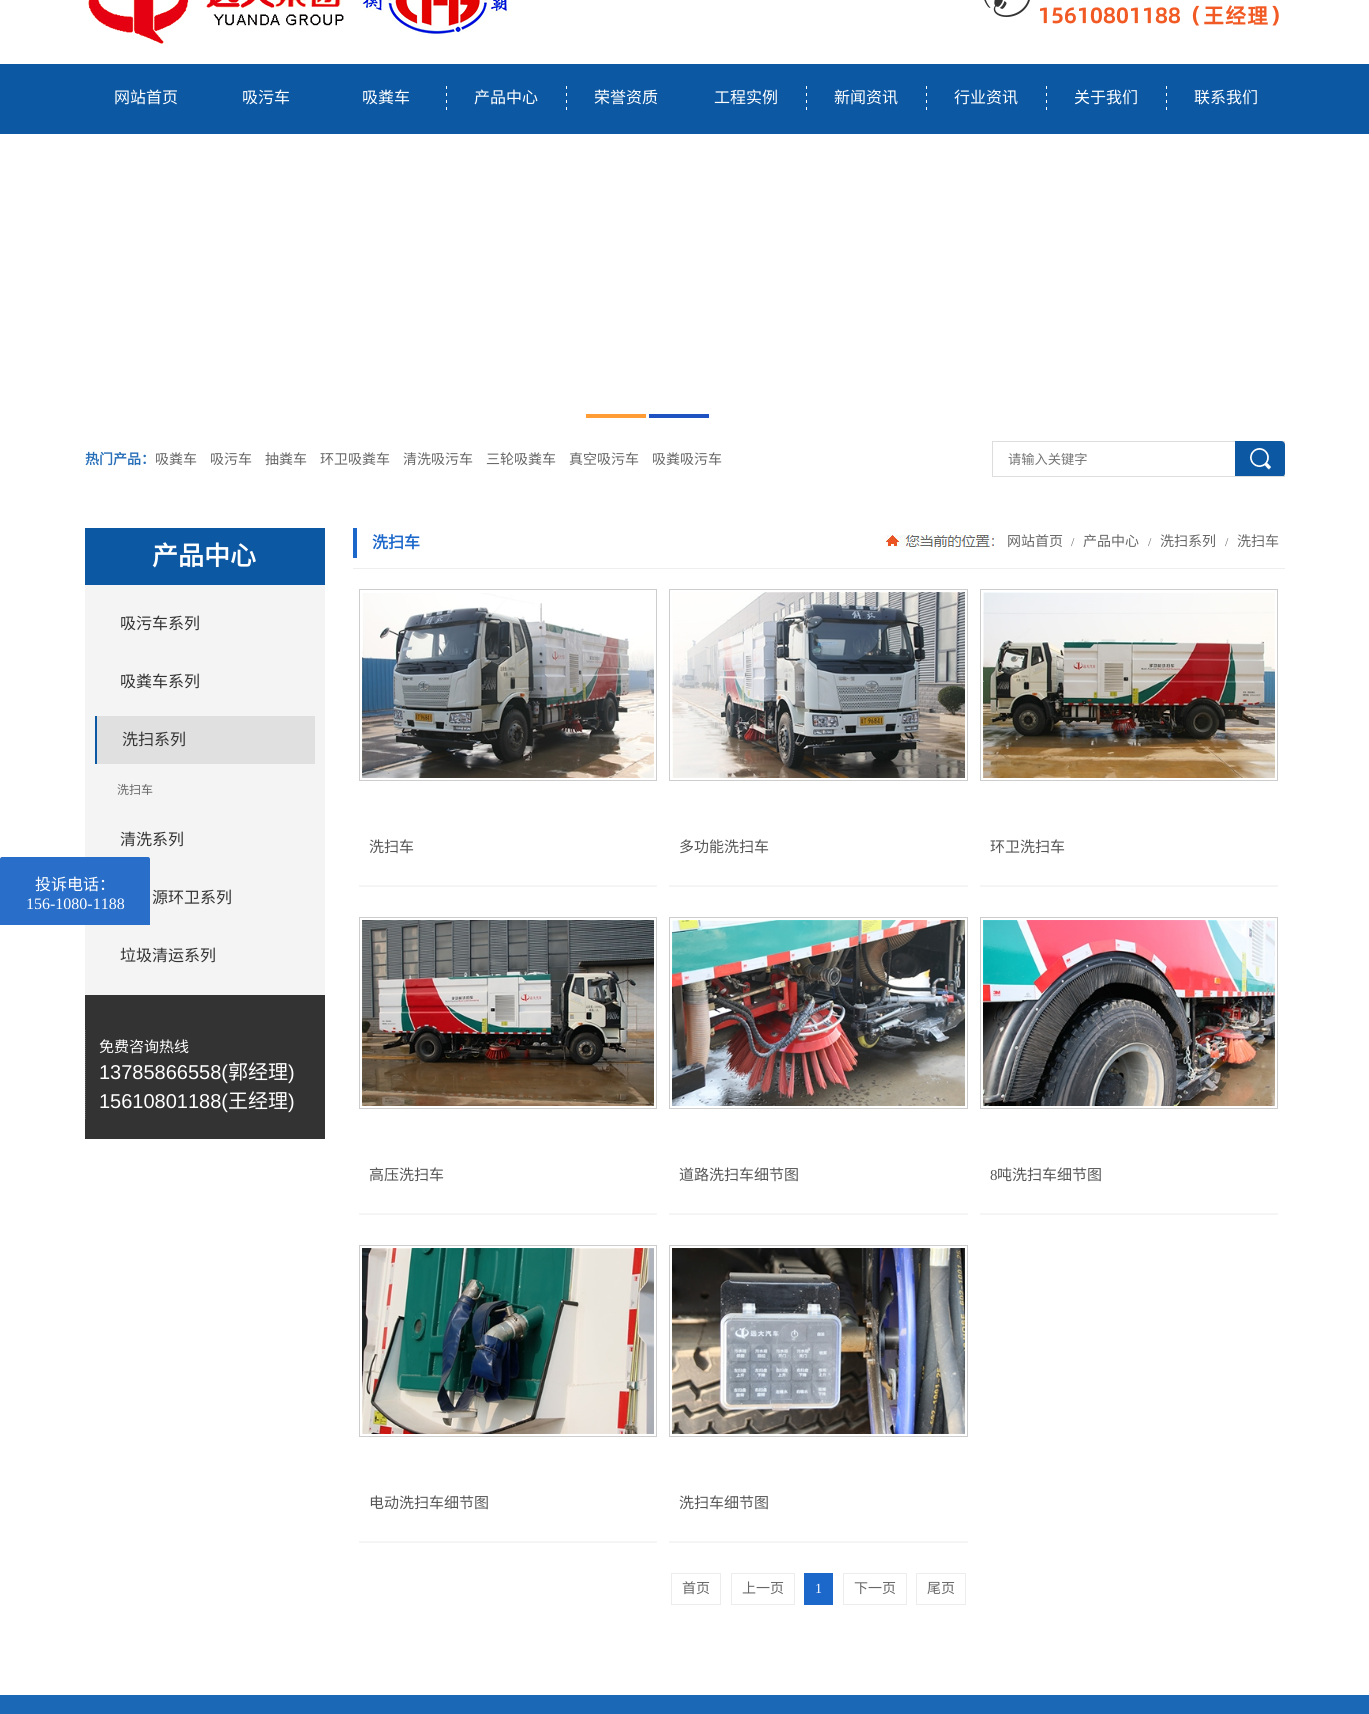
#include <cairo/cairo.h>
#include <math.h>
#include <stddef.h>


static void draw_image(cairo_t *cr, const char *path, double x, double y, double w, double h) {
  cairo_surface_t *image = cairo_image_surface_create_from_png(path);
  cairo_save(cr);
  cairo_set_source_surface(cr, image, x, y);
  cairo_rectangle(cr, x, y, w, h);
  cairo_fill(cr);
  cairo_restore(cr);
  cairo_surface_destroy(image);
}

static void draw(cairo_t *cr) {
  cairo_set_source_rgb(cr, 1, 1, 1);
  cairo_paint(cr);
  cairo_set_source_rgb(cr, 12 / 255.0, 88 / 255.0, 163 / 255.0);
  cairo_rectangle(cr, 0, 64, 1369, 70);
  cairo_fill(cr);
  draw_image(cr, "images/1.png", 88, 0, 422, 44);
  draw_image(cr, "images/2.png", 984, 0, 295, 26);
  draw_image(cr, "images/3.png", 446, 86, 1, 24);
  draw_image(cr, "images/3.png", 566, 86, 1, 24);
  draw_image(cr, "images/3.png", 806, 86, 1, 24);
  draw_image(cr, "images/3.png", 926, 86, 1, 24);
  draw_image(cr, "images/3.png", 1046, 86, 1, 24);
  draw_image(cr, "images/3.png", 1166, 86, 1, 24);
  cairo_set_source_rgb(cr, 1, 157 / 255.0, 52 / 255.0);
  cairo_rectangle(cr, 586, 414, 60, 4);
  cairo_fill(cr);
  cairo_set_source_rgb(cr, 30 / 255.0, 82 / 255.0, 194 / 255.0);
  cairo_rectangle(cr, 649, 414, 60, 4);
  cairo_fill(cr);
  cairo_rectangle(cr, 992.5, 441.5, 292, 35);
  cairo_set_source_rgb(cr, 221 / 255.0, 221 / 255.0, 221 / 255.0);
  cairo_set_line_width(cr, 1);
  cairo_stroke(cr);
  draw_image(cr, "images/4.png", 1235, 441, 50, 35);
  cairo_set_source_rgb(cr, 244 / 255.0, 244 / 255.0, 244 / 255.0);
  cairo_rectangle(cr, 85, 585, 240, 410);
  cairo_fill(cr);
  cairo_set_source_rgb(cr, 41 / 255.0, 110 / 255.0, 201 / 255.0);
  cairo_new_path(cr);
  cairo_move_to(cr, 2, 857);
  cairo_line_to(cr, 148, 857);
  cairo_curve_to(cr, 149, 857, 150, 858, 150, 859);
  cairo_line_to(cr, 150, 925);
  cairo_line_to(cr, 0, 925);
  cairo_line_to(cr, 0, 859);
  cairo_curve_to(cr, 0, 858, 1, 857, 2, 857);
  cairo_close_path(cr);
  cairo_fill(cr);
  cairo_set_source_rgb(cr, 27 / 255.0, 104 / 255.0, 182 / 255.0);
  cairo_rectangle(cr, 0, 1695, 1369, 19);
  cairo_fill(cr);
  cairo_set_source_rgb(cr, 12 / 255.0, 88 / 255.0, 163 / 255.0);
  cairo_rectangle(cr, 85, 528, 240, 57);
  cairo_fill(cr);
  cairo_set_source_rgb(cr, 224 / 255.0, 224 / 255.0, 224 / 255.0);
  cairo_rectangle(cr, 97, 716, 218, 48);
  cairo_fill(cr);
  cairo_set_source_rgb(cr, 12 / 255.0, 88 / 255.0, 163 / 255.0);
  cairo_rectangle(cr, 95, 716, 2, 48);
  cairo_fill(cr);
  cairo_set_source_rgb(cr, 51 / 255.0, 51 / 255.0, 51 / 255.0);
  cairo_rectangle(cr, 85, 995, 240, 144);
  cairo_fill(cr);
  cairo_new_path(cr);
  cairo_move_to(cr, 85.5, 1030);
  cairo_line_to(cr, 85.5, 1119);
  cairo_set_source_rgb(cr, 92 / 255.0, 92 / 255.0, 92 / 255.0);
  cairo_set_dash(cr, (double[]){1, 1}, 2, 0);
  cairo_stroke(cr);
  cairo_set_source_rgb(cr, 238 / 255.0, 238 / 255.0, 238 / 255.0);
  cairo_rectangle(cr, 353, 568, 932, 1);
  cairo_fill(cr);
  cairo_set_source_rgb(cr, 27 / 255.0, 103 / 255.0, 202 / 255.0);
  cairo_rectangle(cr, 353, 528, 4, 30);
  cairo_fill(cr);
  draw_image(cr, "images/5.png", 886, 535, 108, 12);
  cairo_rectangle(cr, 359.5, 589.5, 297, 191);
  cairo_set_source_rgb(cr, 205 / 255.0, 205 / 255.0, 205 / 255.0);
  cairo_set_dash(cr, NULL, 0, 0);
  cairo_stroke(cr);
  draw_image(cr, "images/6.png", 362, 593, 292, 185);
  cairo_set_source_rgb(cr, 245 / 255.0, 245 / 255.0, 245 / 255.0);
  cairo_rectangle(cr, 359, 885, 298, 2);
  cairo_fill(cr);
  cairo_rectangle(cr, 669.5, 589.5, 298, 191);
  cairo_set_source_rgb(cr, 205 / 255.0, 205 / 255.0, 205 / 255.0);
  cairo_stroke(cr);
  draw_image(cr, "images/7.png", 672, 592, 293, 186);
  cairo_set_source_rgb(cr, 245 / 255.0, 245 / 255.0, 245 / 255.0);
  cairo_rectangle(cr, 669, 885, 299, 2);
  cairo_fill(cr);
  cairo_rectangle(cr, 980.5, 589.5, 297, 191);
  cairo_set_source_rgb(cr, 205 / 255.0, 205 / 255.0, 205 / 255.0);
  cairo_stroke(cr);
  draw_image(cr, "images/8.png", 983, 592, 292, 186);
  cairo_set_source_rgb(cr, 245 / 255.0, 245 / 255.0, 245 / 255.0);
  cairo_rectangle(cr, 980, 885, 298, 2);
  cairo_fill(cr);
  cairo_rectangle(cr, 359.5, 917.5, 297, 191);
  cairo_set_source_rgb(cr, 205 / 255.0, 205 / 255.0, 205 / 255.0);
  cairo_stroke(cr);
  draw_image(cr, "images/9.png", 362, 920, 292, 186);
  cairo_set_source_rgb(cr, 245 / 255.0, 245 / 255.0, 245 / 255.0);
  cairo_rectangle(cr, 359, 1213, 298, 2);
  cairo_fill(cr);
  cairo_rectangle(cr, 669.5, 917.5, 298, 191);
  cairo_set_source_rgb(cr, 205 / 255.0, 205 / 255.0, 205 / 255.0);
  cairo_stroke(cr);
  draw_image(cr, "images/10.png", 672, 920, 293, 186);
  cairo_set_source_rgb(cr, 245 / 255.0, 245 / 255.0, 245 / 255.0);
  cairo_rectangle(cr, 669, 1213, 299, 2);
  cairo_fill(cr);
  cairo_rectangle(cr, 980.5, 917.5, 297, 191);
  cairo_set_source_rgb(cr, 205 / 255.0, 205 / 255.0, 205 / 255.0);
  cairo_stroke(cr);
  draw_image(cr, "images/11.png", 983, 920, 292, 186);
  cairo_set_source_rgb(cr, 245 / 255.0, 245 / 255.0, 245 / 255.0);
  cairo_rectangle(cr, 980, 1213, 298, 2);
  cairo_fill(cr);
  cairo_rectangle(cr, 359.5, 1245.5, 297, 191);
  cairo_set_source_rgb(cr, 205 / 255.0, 205 / 255.0, 205 / 255.0);
  cairo_stroke(cr);
  draw_image(cr, "images/12.png", 362, 1248, 292, 186);
  cairo_set_source_rgb(cr, 245 / 255.0, 245 / 255.0, 245 / 255.0);
  cairo_rectangle(cr, 359, 1541, 298, 2);
  cairo_fill(cr);
  cairo_rectangle(cr, 669.5, 1245.5, 298, 191);
  cairo_set_source_rgb(cr, 205 / 255.0, 205 / 255.0, 205 / 255.0);
  cairo_stroke(cr);
  draw_image(cr, "images/13.png", 672, 1248, 293, 186);
  cairo_set_source_rgb(cr, 245 / 255.0, 245 / 255.0, 245 / 255.0);
  cairo_rectangle(cr, 669, 1541, 299, 2);
  cairo_fill(cr);
  cairo_rectangle(cr, 671.5, 1573.5, 49, 31);
  cairo_set_source_rgb(cr, 237 / 255.0, 237 / 255.0, 237 / 255.0);
  cairo_stroke(cr);
  cairo_rectangle(cr, 731.5, 1573.5, 63, 31);
  cairo_stroke(cr);
  cairo_set_source_rgb(cr, 27 / 255.0, 103 / 255.0, 202 / 255.0);
  cairo_rectangle(cr, 804, 1573, 29, 32);
  cairo_fill(cr);
  cairo_rectangle(cr, 843.5, 1573.5, 63, 31);
  cairo_set_source_rgb(cr, 237 / 255.0, 237 / 255.0, 237 / 255.0);
  cairo_stroke(cr);
  cairo_rectangle(cr, 916.5, 1573.5, 49, 31);
  cairo_stroke(cr);
  cairo_select_font_face(cr, "Noto Sans CJK SC", CAIRO_FONT_SLANT_NORMAL, CAIRO_FONT_WEIGHT_NORMAL);
  cairo_set_font_size(cr, 16);
  cairo_set_source_rgb(cr, 1, 1, 1);
  cairo_move_to(cr, 114, 103);
  cairo_show_text(cr, "网站首页");
  cairo_move_to(cr, 242, 103);
  cairo_show_text(cr, "吸污车");
  cairo_move_to(cr, 362, 103);
  cairo_show_text(cr, "吸粪车");
  cairo_move_to(cr, 474, 103);
  cairo_show_text(cr, "产品中心");
  cairo_move_to(cr, 594, 103);
  cairo_show_text(cr, "荣誉资质");
  cairo_move_to(cr, 714, 103);
  cairo_show_text(cr, "工程实例");
  cairo_move_to(cr, 834, 103);
  cairo_show_text(cr, "新闻资讯");
  cairo_move_to(cr, 954, 103);
  cairo_show_text(cr, "行业资讯");
  cairo_move_to(cr, 1074, 103);
  cairo_show_text(cr, "关于我们");
  cairo_move_to(cr, 1194, 103);
  cairo_show_text(cr, "联系我们");
  cairo_select_font_face(cr, "Noto Sans CJK SC", CAIRO_FONT_SLANT_NORMAL, CAIRO_FONT_WEIGHT_BOLD);
  cairo_set_font_size(cr, 14);
  cairo_set_source_rgb(cr, 39 / 255.0, 111 / 255.0, 185 / 255.0);
  cairo_move_to(cr, 85, 464);
  cairo_show_text(cr, "热门产品：");
  cairo_select_font_face(cr, "Noto Sans CJK SC", CAIRO_FONT_SLANT_NORMAL, CAIRO_FONT_WEIGHT_NORMAL);
  cairo_set_source_rgb(cr, 102 / 255.0, 102 / 255.0, 102 / 255.0);
  cairo_move_to(cr, 155, 464);
  cairo_show_text(cr, "吸粪车");
  cairo_move_to(cr, 210, 464);
  cairo_show_text(cr, "吸污车");
  cairo_move_to(cr, 265, 464);
  cairo_show_text(cr, "抽粪车");
  cairo_move_to(cr, 320, 464);
  cairo_show_text(cr, "环卫吸粪车");
  cairo_move_to(cr, 403, 464);
  cairo_show_text(cr, "清洗吸污车");
  cairo_move_to(cr, 486, 464);
  cairo_show_text(cr, "三轮吸粪车");
  cairo_move_to(cr, 569, 464);
  cairo_show_text(cr, "真空吸污车");
  cairo_move_to(cr, 652, 464);
  cairo_show_text(cr, "吸粪吸污车");
  cairo_set_font_size(cr, 13.25);
  cairo_set_source_rgb(cr, 117 / 255.0, 117 / 255.0, 117 / 255.0);
  cairo_move_to(cr, 1008, 464);
  cairo_show_text(cr, "请输入关键字");
  cairo_set_font_size(cr, 16);
  cairo_set_source_rgb(cr, 1, 1, 1);
  cairo_move_to(cr, 35, 890);
  cairo_show_text(cr, "投诉电话：");
  cairo_select_font_face(cr, "Liberation Serif", CAIRO_FONT_SLANT_NORMAL, CAIRO_FONT_WEIGHT_NORMAL);
  cairo_move_to(cr, 26, 909);
  cairo_show_text(cr, "156-1080-1188");
  cairo_select_font_face(cr, "Noto Sans CJK SC", CAIRO_FONT_SLANT_NORMAL, CAIRO_FONT_WEIGHT_BOLD);
  cairo_set_font_size(cr, 26);
  cairo_move_to(cr, 152, 565);
  cairo_show_text(cr, "产品中心");
  cairo_select_font_face(cr, "Noto Sans CJK SC", CAIRO_FONT_SLANT_NORMAL, CAIRO_FONT_WEIGHT_NORMAL);
  cairo_set_font_size(cr, 16);
  cairo_set_source_rgb(cr, 51 / 255.0, 51 / 255.0, 51 / 255.0);
  cairo_move_to(cr, 120, 629);
  cairo_show_text(cr, "吸污车系列");
  cairo_move_to(cr, 120, 687);
  cairo_show_text(cr, "吸粪车系列");
  cairo_move_to(cr, 122, 745);
  cairo_show_text(cr, "洗扫系列");
  cairo_set_font_size(cr, 12);
  cairo_set_source_rgb(cr, 102 / 255.0, 102 / 255.0, 102 / 255.0);
  cairo_move_to(cr, 117, 794);
  cairo_show_text(cr, "洗扫车");
  cairo_set_font_size(cr, 16);
  cairo_set_source_rgb(cr, 51 / 255.0, 51 / 255.0, 51 / 255.0);
  cairo_move_to(cr, 120, 845);
  cairo_show_text(cr, "清洗系列");
  cairo_move_to(cr, 152, 903);
  cairo_show_text(cr, "源环卫系列");
  cairo_move_to(cr, 120, 961);
  cairo_show_text(cr, "垃圾清运系列");
  cairo_set_font_size(cr, 15);
  cairo_set_source_rgb(cr, 1, 1, 1);
  cairo_move_to(cr, 99, 1052);
  cairo_show_text(cr, "免费咨询热线");
  cairo_select_font_face(cr, "Liberation Sans", CAIRO_FONT_SLANT_NORMAL, CAIRO_FONT_WEIGHT_NORMAL);
  cairo_set_font_size(cr, 20);
  cairo_move_to(cr, 99, 1079);
  cairo_show_text(cr, "13785866558(");
  cairo_select_font_face(cr, "Noto Sans CJK SC", CAIRO_FONT_SLANT_NORMAL, CAIRO_FONT_WEIGHT_NORMAL);
  cairo_move_to(cr, 228, 1079);
  cairo_show_text(cr, "郭经理");
  cairo_select_font_face(cr, "Liberation Sans", CAIRO_FONT_SLANT_NORMAL, CAIRO_FONT_WEIGHT_NORMAL);
  cairo_move_to(cr, 288, 1079);
  cairo_show_text(cr, ")");
  cairo_move_to(cr, 99, 1108);
  cairo_show_text(cr, "15610801188(");
  cairo_select_font_face(cr, "Noto Sans CJK SC", CAIRO_FONT_SLANT_NORMAL, CAIRO_FONT_WEIGHT_NORMAL);
  cairo_move_to(cr, 228, 1108);
  cairo_show_text(cr, "王经理");
  cairo_select_font_face(cr, "Liberation Sans", CAIRO_FONT_SLANT_NORMAL, CAIRO_FONT_WEIGHT_NORMAL);
  cairo_move_to(cr, 288, 1108);
  cairo_show_text(cr, ")");
  cairo_select_font_face(cr, "Noto Sans CJK SC", CAIRO_FONT_SLANT_NORMAL, CAIRO_FONT_WEIGHT_BOLD);
  cairo_set_font_size(cr, 16);
  cairo_set_source_rgb(cr, 27 / 255.0, 103 / 255.0, 202 / 255.0);
  cairo_move_to(cr, 372, 548);
  cairo_show_text(cr, "洗扫车");
  cairo_select_font_face(cr, "Noto Sans CJK SC", CAIRO_FONT_SLANT_NORMAL, CAIRO_FONT_WEIGHT_NORMAL);
  cairo_set_font_size(cr, 14);
  cairo_set_source_rgb(cr, 102 / 255.0, 102 / 255.0, 102 / 255.0);
  cairo_move_to(cr, 1007, 546);
  cairo_show_text(cr, "网站首页");
  cairo_select_font_face(cr, "Liberation Serif", CAIRO_FONT_SLANT_NORMAL, CAIRO_FONT_WEIGHT_NORMAL);
  cairo_set_font_size(cr, 12);
  cairo_move_to(cr, 1071, 546);
  cairo_show_text(cr, "/");
  cairo_select_font_face(cr, "Noto Sans CJK SC", CAIRO_FONT_SLANT_NORMAL, CAIRO_FONT_WEIGHT_NORMAL);
  cairo_set_font_size(cr, 14);
  cairo_move_to(cr, 1083, 546);
  cairo_show_text(cr, "产品中心");
  cairo_select_font_face(cr, "Liberation Serif", CAIRO_FONT_SLANT_NORMAL, CAIRO_FONT_WEIGHT_NORMAL);
  cairo_set_font_size(cr, 12);
  cairo_move_to(cr, 1148, 546);
  cairo_show_text(cr, "/");
  cairo_select_font_face(cr, "Noto Sans CJK SC", CAIRO_FONT_SLANT_NORMAL, CAIRO_FONT_WEIGHT_NORMAL);
  cairo_set_font_size(cr, 14);
  cairo_move_to(cr, 1160, 546);
  cairo_show_text(cr, "洗扫系列");
  cairo_select_font_face(cr, "Liberation Serif", CAIRO_FONT_SLANT_NORMAL, CAIRO_FONT_WEIGHT_NORMAL);
  cairo_set_font_size(cr, 12);
  cairo_move_to(cr, 1225, 546);
  cairo_show_text(cr, "/");
  cairo_select_font_face(cr, "Noto Sans CJK SC", CAIRO_FONT_SLANT_NORMAL, CAIRO_FONT_WEIGHT_NORMAL);
  cairo_set_font_size(cr, 14);
  cairo_move_to(cr, 1237, 546);
  cairo_show_text(cr, "洗扫车");
  cairo_set_font_size(cr, 15);
  cairo_set_source_rgb(cr, 85 / 255.0, 85 / 255.0, 85 / 255.0);
  cairo_move_to(cr, 369, 852);
  cairo_show_text(cr, "洗扫车");
  cairo_move_to(cr, 679, 852);
  cairo_show_text(cr, "多功能洗扫车");
  cairo_move_to(cr, 990, 852);
  cairo_show_text(cr, "环卫洗扫车");
  cairo_move_to(cr, 369, 1180);
  cairo_show_text(cr, "高压洗扫车");
  cairo_move_to(cr, 679, 1180);
  cairo_show_text(cr, "道路洗扫车细节图");
  cairo_select_font_face(cr, "Liberation Serif", CAIRO_FONT_SLANT_NORMAL, CAIRO_FONT_WEIGHT_NORMAL);
  cairo_move_to(cr, 990, 1180);
  cairo_show_text(cr, "8");
  cairo_select_font_face(cr, "Noto Sans CJK SC", CAIRO_FONT_SLANT_NORMAL, CAIRO_FONT_WEIGHT_NORMAL);
  cairo_move_to(cr, 997, 1180);
  cairo_show_text(cr, "吨洗扫车细节图");
  cairo_move_to(cr, 369, 1508);
  cairo_show_text(cr, "电动洗扫车细节图");
  cairo_move_to(cr, 679, 1508);
  cairo_show_text(cr, "洗扫车细节图");
  cairo_set_font_size(cr, 14);
  cairo_set_source_rgb(cr, 102 / 255.0, 102 / 255.0, 102 / 255.0);
  cairo_move_to(cr, 682, 1593);
  cairo_show_text(cr, "首页");
  cairo_move_to(cr, 742, 1593);
  cairo_show_text(cr, "上一页");
  cairo_select_font_face(cr, "Liberation Serif", CAIRO_FONT_SLANT_NORMAL, CAIRO_FONT_WEIGHT_NORMAL);
  cairo_set_source_rgb(cr, 1, 1, 1);
  cairo_move_to(cr, 815, 1593);
  cairo_show_text(cr, "1");
  cairo_select_font_face(cr, "Noto Sans CJK SC", CAIRO_FONT_SLANT_NORMAL, CAIRO_FONT_WEIGHT_NORMAL);
  cairo_set_source_rgb(cr, 102 / 255.0, 102 / 255.0, 102 / 255.0);
  cairo_move_to(cr, 854, 1593);
  cairo_show_text(cr, "下一页");
  cairo_move_to(cr, 927, 1593);
  cairo_show_text(cr, "尾页");
}

int main(void) {
  cairo_surface_t *surface = cairo_image_surface_create(CAIRO_FORMAT_RGB24, 1369, 1714);
  cairo_t *cr = cairo_create(surface);
  cairo_font_options_t *options = cairo_font_options_create();
  cairo_font_options_set_hint_metrics(options, CAIRO_HINT_METRICS_OFF);
  cairo_font_options_set_hint_style(options, CAIRO_HINT_STYLE_NONE);
  cairo_set_font_options(cr, options);
  cairo_set_miter_limit(cr, 4);
  draw(cr);
  cairo_surface_write_to_png(surface, "out.png");
  cairo_font_options_destroy(options);
  cairo_destroy(cr);
  cairo_surface_destroy(surface);
  return 0;
}
